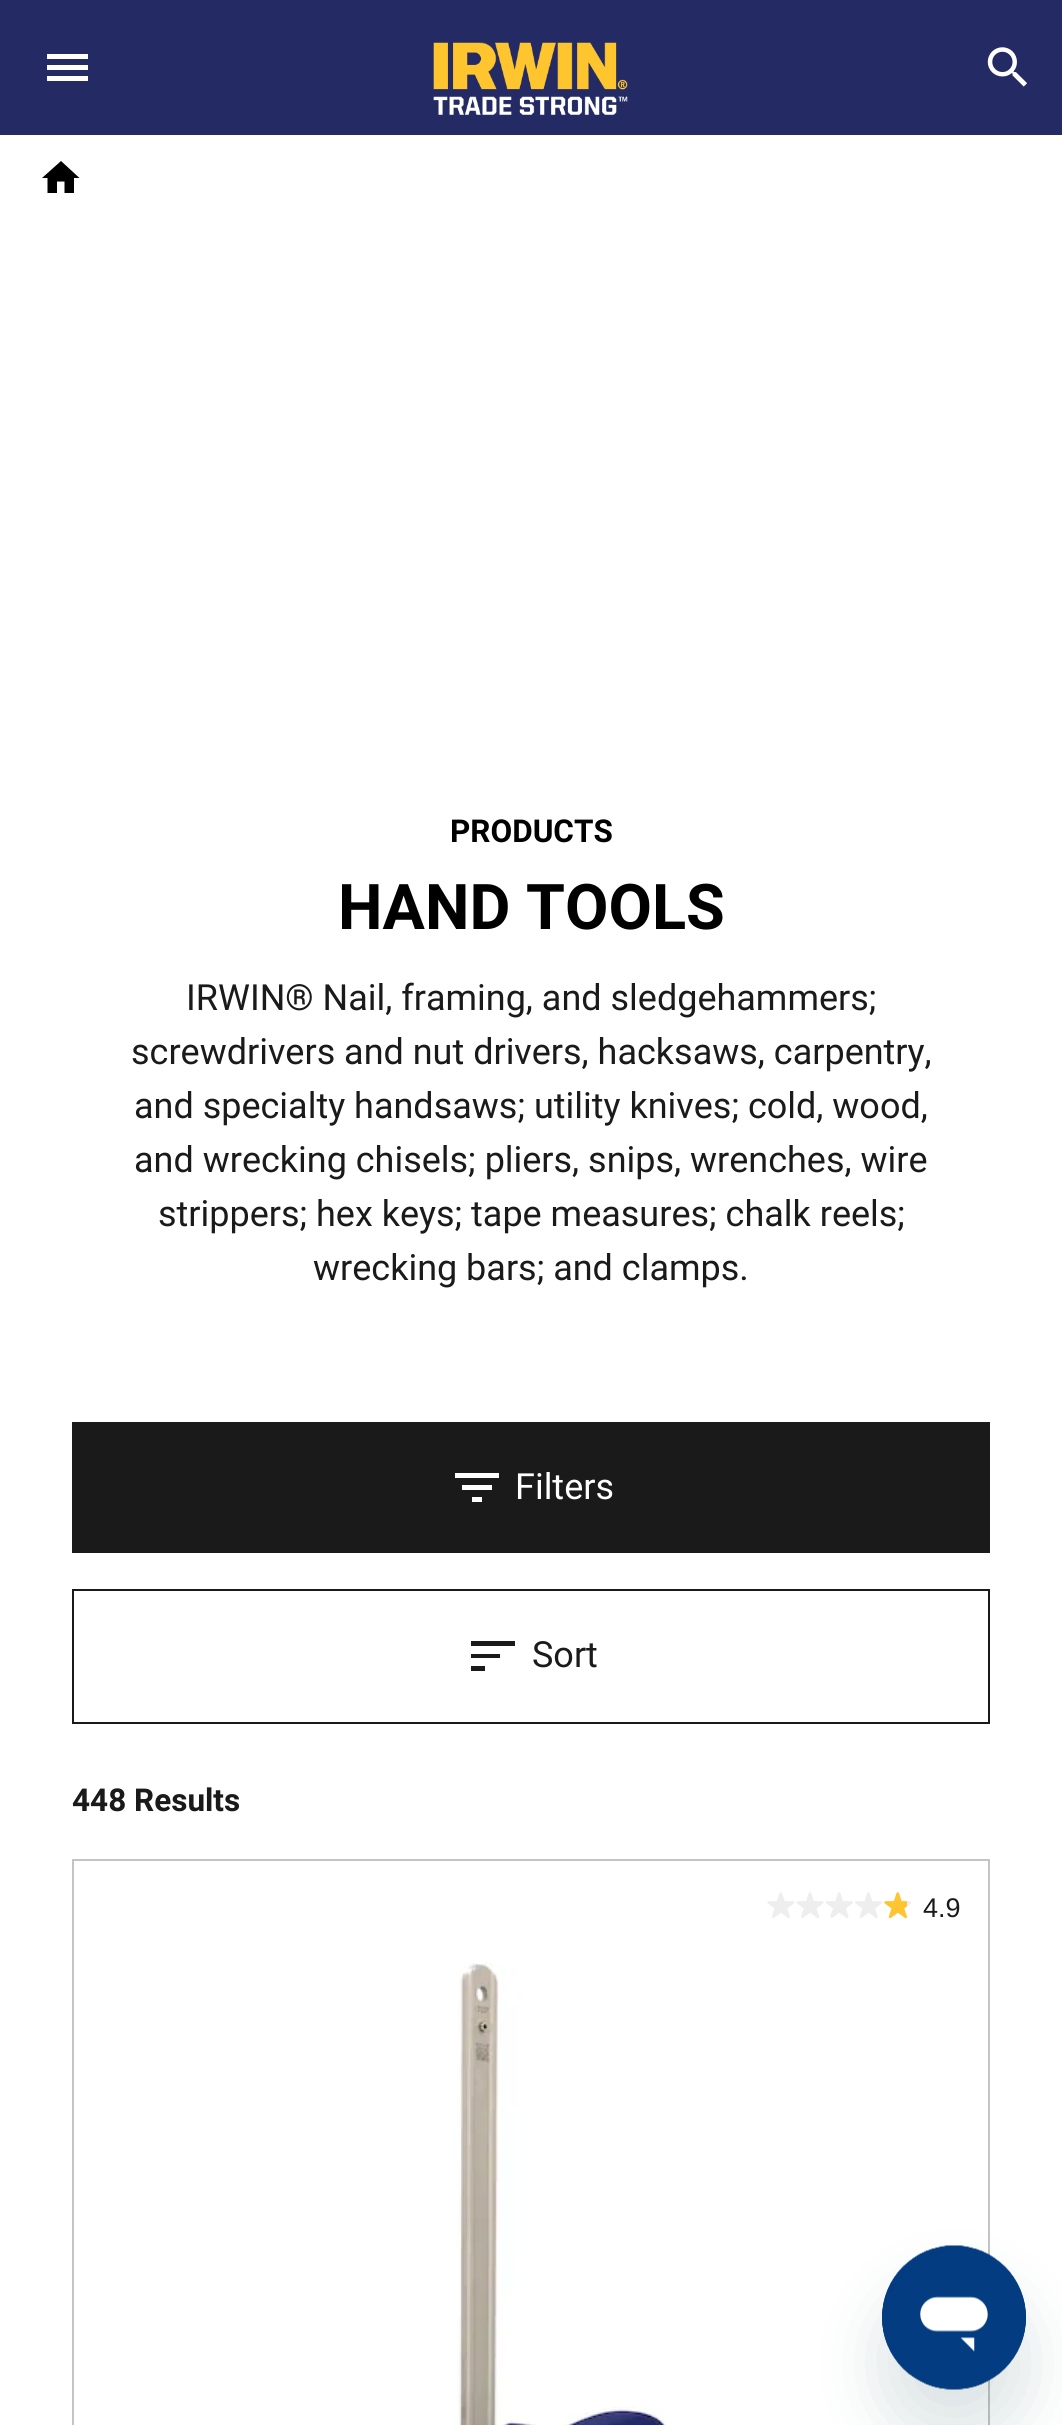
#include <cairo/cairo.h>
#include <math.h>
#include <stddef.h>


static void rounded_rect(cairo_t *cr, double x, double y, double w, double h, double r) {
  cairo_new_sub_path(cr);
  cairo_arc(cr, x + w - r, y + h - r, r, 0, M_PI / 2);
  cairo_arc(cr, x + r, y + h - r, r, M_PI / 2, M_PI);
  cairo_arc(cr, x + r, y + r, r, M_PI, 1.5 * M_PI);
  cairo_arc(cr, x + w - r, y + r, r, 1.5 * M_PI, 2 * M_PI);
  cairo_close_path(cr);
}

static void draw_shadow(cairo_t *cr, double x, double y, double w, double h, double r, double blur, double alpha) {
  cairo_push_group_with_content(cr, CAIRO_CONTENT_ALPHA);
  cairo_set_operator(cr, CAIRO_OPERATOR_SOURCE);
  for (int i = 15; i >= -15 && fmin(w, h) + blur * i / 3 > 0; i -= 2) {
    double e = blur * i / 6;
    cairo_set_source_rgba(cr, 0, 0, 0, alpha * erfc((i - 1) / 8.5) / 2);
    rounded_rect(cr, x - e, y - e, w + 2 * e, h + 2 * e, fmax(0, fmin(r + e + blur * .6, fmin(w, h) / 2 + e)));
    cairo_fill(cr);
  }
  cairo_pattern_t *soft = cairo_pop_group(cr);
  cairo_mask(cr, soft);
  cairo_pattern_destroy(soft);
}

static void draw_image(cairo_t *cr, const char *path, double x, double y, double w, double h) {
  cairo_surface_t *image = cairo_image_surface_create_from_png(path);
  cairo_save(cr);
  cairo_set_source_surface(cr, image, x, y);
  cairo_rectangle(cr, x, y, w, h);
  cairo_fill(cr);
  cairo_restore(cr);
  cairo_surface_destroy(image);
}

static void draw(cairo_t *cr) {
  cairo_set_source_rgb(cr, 1, 1, 1);
  cairo_paint(cr);
  cairo_set_source_rgb(cr, 36 / 255.0, 43 / 255.0, 100 / 255.0);
  cairo_rectangle(cr, 0, 0, 1062, 135);
  cairo_fill(cr);
  cairo_set_source_rgb(cr, 1, 1, 1);
  cairo_new_path(cr);
  cairo_move_to(cr, 47, 81);
  cairo_line_to(cr, 47, 76);
  cairo_line_to(cr, 88, 76);
  cairo_line_to(cr, 88, 81);
  cairo_close_path(cr);
  cairo_move_to(cr, 47, 70);
  cairo_line_to(cr, 47, 65);
  cairo_line_to(cr, 88, 65);
  cairo_line_to(cr, 88, 70);
  cairo_close_path(cr);
  cairo_move_to(cr, 47, 54);
  cairo_line_to(cr, 88, 54);
  cairo_line_to(cr, 88, 59);
  cairo_line_to(cr, 47, 59);
  cairo_close_path(cr);
  cairo_fill(cr);
  draw_image(cr, "images/1.png", 433, 42, 195, 73);
  draw_image(cr, "images/2.png", 987, 47, 40, 40);
  cairo_set_source_rgb(cr, 0, 0, 0);
  cairo_new_path(cr);
  cairo_move_to(cr, 57, 193);
  cairo_line_to(cr, 47.5, 193);
  cairo_line_to(cr, 47.5, 178);
  cairo_line_to(cr, 42, 178);
  cairo_line_to(cr, 61, 161);
  cairo_line_to(cr, 79.5, 178);
  cairo_line_to(cr, 74, 178);
  cairo_line_to(cr, 74, 193);
  cairo_line_to(cr, 64.5, 193);
  cairo_line_to(cr, 64.5, 181.5);
  cairo_line_to(cr, 57, 181.5);
  cairo_close_path(cr);
  cairo_fill(cr);
  cairo_set_source_rgb(cr, 26 / 255.0, 26 / 255.0, 26 / 255.0);
  cairo_rectangle(cr, 72, 1422, 918, 131);
  cairo_fill(cr);
  cairo_set_source_rgb(cr, 1, 1, 1);
  cairo_new_path(cr);
  cairo_move_to(cr, 472, 1502);
  cairo_line_to(cr, 472, 1497);
  cairo_line_to(cr, 482, 1497);
  cairo_line_to(cr, 482, 1502);
  cairo_close_path(cr);
  cairo_move_to(cr, 455, 1473);
  cairo_line_to(cr, 499, 1473);
  cairo_line_to(cr, 499, 1478);
  cairo_line_to(cr, 455, 1478);
  cairo_close_path(cr);
  cairo_move_to(cr, 462, 1490);
  cairo_line_to(cr, 462, 1485);
  cairo_line_to(cr, 492, 1485);
  cairo_line_to(cr, 492, 1490);
  cairo_close_path(cr);
  cairo_fill(cr);
  cairo_rectangle(cr, 73, 1590, 916, 133);
  cairo_set_source_rgb(cr, 26 / 255.0, 26 / 255.0, 26 / 255.0);
  cairo_stroke(cr);
  cairo_new_path(cr);
  cairo_move_to(cr, 471, 1671);
  cairo_line_to(cr, 471, 1666);
  cairo_line_to(cr, 485, 1666);
  cairo_line_to(cr, 485, 1671);
  cairo_close_path(cr);
  cairo_move_to(cr, 471, 1641);
  cairo_line_to(cr, 515, 1641);
  cairo_line_to(cr, 515, 1646);
  cairo_line_to(cr, 471, 1646);
  cairo_close_path(cr);
  cairo_move_to(cr, 471, 1658);
  cairo_line_to(cr, 471, 1654);
  cairo_line_to(cr, 500, 1654);
  cairo_line_to(cr, 500, 1658);
  cairo_close_path(cr);
  cairo_fill(cr);
  cairo_rectangle(cr, 73, 1860, 916, 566);
  cairo_set_source_rgb(cr, 196 / 255.0, 196 / 255.0, 196 / 255.0);
  cairo_stroke(cr);
  draw_image(cr, "images/3.png", 457, 1963, 210, 462);
  draw_image(cr, "images/4.png", 767, 1892, 27, 26);
  draw_image(cr, "images/5.png", 796, 1892, 28, 26);
  draw_image(cr, "images/6.png", 826, 1892, 27, 26);
  draw_image(cr, "images/7.png", 855, 1892, 27, 26);
  draw_image(cr, "images/8.png", 884, 1892, 27, 27);
  cairo_set_source_rgb(cr, 23 / 255.0, 73 / 255.0, 77 / 255.0);
  draw_shadow(cr, 882, 2291, 144, 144, 72, 34, 0.15);
  draw_image(cr, "images/9.png", 882, 2245, 144, 145);
  cairo_select_font_face(cr, "Roboto", CAIRO_FONT_SLANT_NORMAL, CAIRO_FONT_WEIGHT_BOLD);
  cairo_set_font_size(cr, 31.5);
  cairo_set_source_rgb(cr, 0, 0, 0);
  cairo_move_to(cr, 450, 842);
  cairo_show_text(cr, "PRODUCTS");
  cairo_set_font_size(cr, 63);
  cairo_move_to(cr, 338, 929);
  cairo_show_text(cr, "HAND TOOLS");
  cairo_select_font_face(cr, "Roboto", CAIRO_FONT_SLANT_NORMAL, CAIRO_FONT_WEIGHT_NORMAL);
  cairo_set_font_size(cr, 36);
  cairo_set_source_rgb(cr, 26 / 255.0, 26 / 255.0, 26 / 255.0);
  cairo_move_to(cr, 186, 1010);
  cairo_show_text(cr, "IRWIN® Nail, framing, and sledgehammers;");
  cairo_move_to(cr, 131, 1064);
  cairo_show_text(cr, "screwdrivers and nut drivers, hacksaws, carpentry,");
  cairo_move_to(cr, 134, 1118);
  cairo_show_text(cr, "and specialty handsaws; utility knives; cold, wood,");
  cairo_move_to(cr, 134, 1172);
  cairo_show_text(cr, "and wrecking chisels; pliers, snips, wrenches, wire");
  cairo_move_to(cr, 158, 1226);
  cairo_show_text(cr, "strippers; hex keys; tape measures; chalk reels;");
  cairo_move_to(cr, 313, 1280);
  cairo_show_text(cr, "wrecking bars; and clamps.");
  cairo_set_source_rgb(cr, 1, 1, 1);
  cairo_move_to(cr, 515, 1499);
  cairo_show_text(cr, "Filters");
  cairo_set_source_rgb(cr, 26 / 255.0, 26 / 255.0, 26 / 255.0);
  cairo_move_to(cr, 532, 1667);
  cairo_show_text(cr, "Sort");
  cairo_select_font_face(cr, "Roboto", CAIRO_FONT_SLANT_NORMAL, CAIRO_FONT_WEIGHT_BOLD);
  cairo_set_font_size(cr, 31.5);
  cairo_move_to(cr, 72, 1811);
  cairo_show_text(cr, "448 Results");
  cairo_select_font_face(cr, "Liberation Sans", CAIRO_FONT_SLANT_NORMAL, CAIRO_FONT_WEIGHT_NORMAL);
  cairo_set_font_size(cr, 27);
  cairo_move_to(cr, 923, 1917);
  cairo_show_text(cr, "4.9");
}

int main(void) {
  cairo_surface_t *surface = cairo_image_surface_create(CAIRO_FORMAT_RGB24, 1062, 2425);
  cairo_t *cr = cairo_create(surface);
  cairo_font_options_t *options = cairo_font_options_create();
  cairo_font_options_set_hint_metrics(options, CAIRO_HINT_METRICS_OFF);
  cairo_font_options_set_hint_style(options, CAIRO_HINT_STYLE_NONE);
  cairo_set_font_options(cr, options);
  cairo_set_miter_limit(cr, 4);
  draw(cr);
  cairo_surface_write_to_png(surface, "out.png");
  cairo_font_options_destroy(options);
  cairo_destroy(cr);
  cairo_surface_destroy(surface);
  return 0;
}
